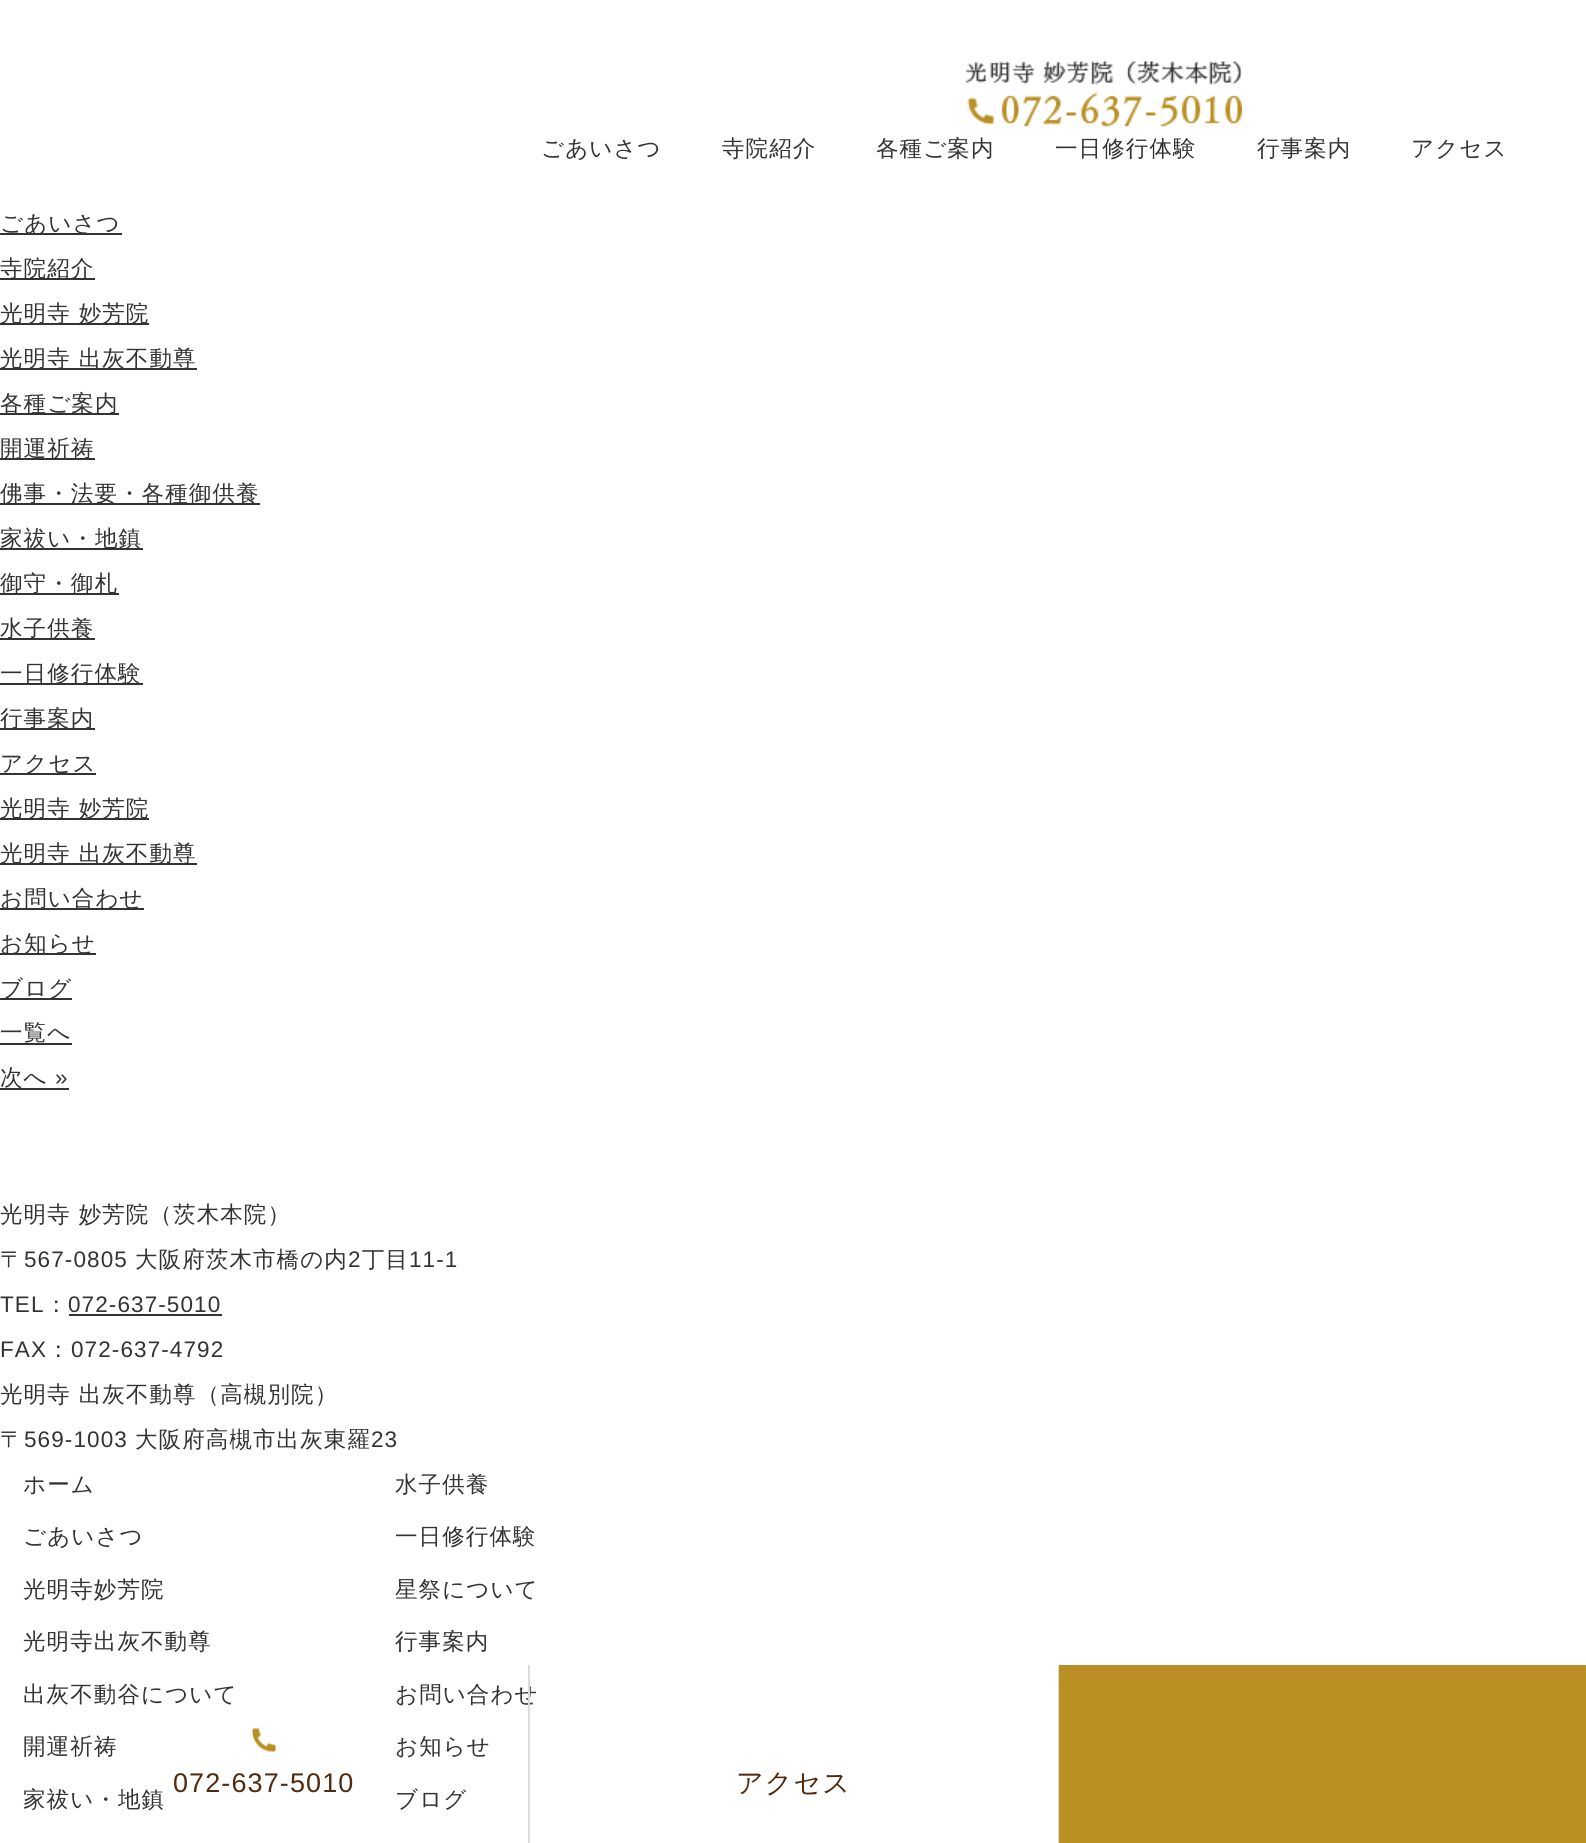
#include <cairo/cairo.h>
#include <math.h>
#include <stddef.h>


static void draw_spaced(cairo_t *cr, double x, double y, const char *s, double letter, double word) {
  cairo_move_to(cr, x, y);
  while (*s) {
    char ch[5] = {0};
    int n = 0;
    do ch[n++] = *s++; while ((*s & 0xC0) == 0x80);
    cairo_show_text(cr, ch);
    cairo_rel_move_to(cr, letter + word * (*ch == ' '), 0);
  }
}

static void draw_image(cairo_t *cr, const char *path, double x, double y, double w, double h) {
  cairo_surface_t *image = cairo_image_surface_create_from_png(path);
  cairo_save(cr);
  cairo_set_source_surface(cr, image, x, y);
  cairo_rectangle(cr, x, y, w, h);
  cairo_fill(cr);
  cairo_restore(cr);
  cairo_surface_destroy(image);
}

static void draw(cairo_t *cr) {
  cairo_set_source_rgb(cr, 1, 1, 1);
  cairo_paint(cr);
  draw_image(cr, "images/1.png", 966, 61, 276, 66);
  cairo_set_source_rgb(cr, 51 / 255.0, 51 / 255.0, 51 / 255.0);
  cairo_rectangle(cr, 0, 233, 122, 2);
  cairo_fill(cr);
  cairo_rectangle(cr, 0, 278, 95, 2);
  cairo_fill(cr);
  cairo_rectangle(cr, 0, 323, 149, 2);
  cairo_fill(cr);
  cairo_rectangle(cr, 0, 368, 197, 2);
  cairo_fill(cr);
  cairo_rectangle(cr, 0, 413, 119, 2);
  cairo_fill(cr);
  cairo_rectangle(cr, 0, 458, 95, 2);
  cairo_fill(cr);
  cairo_rectangle(cr, 0, 503, 260, 2);
  cairo_fill(cr);
  cairo_rectangle(cr, 0, 548, 143, 2);
  cairo_fill(cr);
  cairo_rectangle(cr, 0, 593, 119, 2);
  cairo_fill(cr);
  cairo_rectangle(cr, 0, 638, 95, 2);
  cairo_fill(cr);
  cairo_rectangle(cr, 0, 683, 143, 2);
  cairo_fill(cr);
  cairo_rectangle(cr, 0, 728, 95, 2);
  cairo_fill(cr);
  cairo_rectangle(cr, 0, 773, 96, 2);
  cairo_fill(cr);
  cairo_rectangle(cr, 0, 818, 149, 2);
  cairo_fill(cr);
  cairo_rectangle(cr, 0, 863, 197, 2);
  cairo_fill(cr);
  cairo_rectangle(cr, 0, 908, 144, 2);
  cairo_fill(cr);
  cairo_rectangle(cr, 0, 953, 96, 2);
  cairo_fill(cr);
  cairo_rectangle(cr, 0, 998, 72, 2);
  cairo_fill(cr);
  cairo_rectangle(cr, 0, 1043, 72, 2);
  cairo_fill(cr);
  cairo_rectangle(cr, 0, 1088, 69, 2);
  cairo_fill(cr);
  cairo_rectangle(cr, 69, 1314, 153, 2);
  cairo_fill(cr);
  draw_image(cr, "images/2.png", 252, 1727, 24, 25);
  cairo_set_source_rgb(cr, 219 / 255.0, 219 / 255.0, 219 / 255.0);
  cairo_rectangle(cr, 1058, 1665, 1, 178);
  cairo_fill(cr);
  cairo_set_source_rgb(cr, 186 / 255.0, 143 / 255.0, 36 / 255.0);
  cairo_rectangle(cr, 1059, 1665, 527, 178);
  cairo_fill(cr);
  cairo_select_font_face(cr, "WenQuanYi Zen Hei Medium", CAIRO_FONT_SLANT_NORMAL, CAIRO_FONT_WEIGHT_NORMAL);
  cairo_set_font_size(cr, 22.5);
  cairo_set_source_rgb(cr, 51 / 255.0, 51 / 255.0, 51 / 255.0);
  draw_spaced(cr, 541, 156, "ごあいさつ", 1.1, 0);
  draw_spaced(cr, 722, 156, "寺院紹介", 1.1, 0);
  draw_spaced(cr, 876, 156, "各種ご案内", 1.1, 0);
  draw_spaced(cr, 1055, 156, "一日修行体験", 1.1, 0);
  draw_spaced(cr, 1257, 156, "行事案内", 1.1, 0);
  draw_spaced(cr, 1411, 156, "アクセス", 1.1, 0);
  draw_spaced(cr, 0, 231, "ごあいさつ", 1.1, 0);
  draw_spaced(cr, 0, 276, "寺院紹介", 1.1, 0);
  draw_spaced(cr, 0, 321, "光明寺 妙芳院", 1.1, 0);
  draw_spaced(cr, 0, 366, "光明寺 出灰不動尊", 1.1, 0);
  draw_spaced(cr, 0, 411, "各種ご案内", 1.1, 0);
  draw_spaced(cr, 0, 456, "開運祈祷", 1.1, 0);
  draw_spaced(cr, 0, 501, "佛事・法要・各種御供養", 1.1, 0);
  draw_spaced(cr, 0, 546, "家祓い・地鎮", 1.1, 0);
  draw_spaced(cr, 0, 591, "御守・御札", 1.1, 0);
  draw_spaced(cr, 0, 636, "水子供養", 1.1, 0);
  draw_spaced(cr, 0, 681, "一日修行体験", 1.1, 0);
  draw_spaced(cr, 0, 726, "行事案内", 1.1, 0);
  draw_spaced(cr, 0, 771, "アクセス", 1.1, 0);
  draw_spaced(cr, 0, 816, "光明寺 妙芳院", 1.1, 0);
  draw_spaced(cr, 0, 861, "光明寺 出灰不動尊", 1.1, 0);
  draw_spaced(cr, 0, 906, "お問い合わせ", 1.1, 0);
  draw_spaced(cr, 0, 951, "お知らせ", 1.1, 0);
  draw_spaced(cr, 0, 996, "ブログ", 1.1, 0);
  draw_spaced(cr, 0, 1040, "一覧へ", 1.1, 0);
  draw_spaced(cr, 0, 1085, "次へ", 1.1, 0);
  cairo_select_font_face(cr, "Liberation Sans", CAIRO_FONT_SLANT_NORMAL, CAIRO_FONT_WEIGHT_NORMAL);
  draw_spaced(cr, 55, 1085, "»", 1.1, 0);
  cairo_select_font_face(cr, "WenQuanYi Zen Hei Medium", CAIRO_FONT_SLANT_NORMAL, CAIRO_FONT_WEIGHT_NORMAL);
  draw_spaced(cr, 0, 1222, "光明寺 妙芳院（茨木本院）", 1.1, 0);
  draw_spaced(cr, 0, 1267, "〒", 1.1, 0);
  cairo_select_font_face(cr, "Liberation Sans", CAIRO_FONT_SLANT_NORMAL, CAIRO_FONT_WEIGHT_NORMAL);
  draw_spaced(cr, 24, 1267, "567-0805", 1.1, 0);
  cairo_select_font_face(cr, "WenQuanYi Zen Hei Medium", CAIRO_FONT_SLANT_NORMAL, CAIRO_FONT_WEIGHT_NORMAL);
  draw_spaced(cr, 135, 1267, "大阪府茨木市橋の内", 1.1, 0);
  cairo_select_font_face(cr, "Liberation Sans", CAIRO_FONT_SLANT_NORMAL, CAIRO_FONT_WEIGHT_NORMAL);
  draw_spaced(cr, 348, 1267, "2", 1.1, 0);
  cairo_select_font_face(cr, "WenQuanYi Zen Hei Medium", CAIRO_FONT_SLANT_NORMAL, CAIRO_FONT_WEIGHT_NORMAL);
  draw_spaced(cr, 362, 1267, "丁目", 1.1, 0);
  cairo_select_font_face(cr, "Liberation Sans", CAIRO_FONT_SLANT_NORMAL, CAIRO_FONT_WEIGHT_NORMAL);
  draw_spaced(cr, 409, 1267, "11-1", 1.1, 0);
  draw_spaced(cr, 0, 1312, "TEL", 1.1, 0);
  cairo_select_font_face(cr, "WenQuanYi Zen Hei Medium", CAIRO_FONT_SLANT_NORMAL, CAIRO_FONT_WEIGHT_NORMAL);
  draw_spaced(cr, 45, 1312, "：", 1.1, 0);
  cairo_select_font_face(cr, "Liberation Sans", CAIRO_FONT_SLANT_NORMAL, CAIRO_FONT_WEIGHT_NORMAL);
  draw_spaced(cr, 68, 1312, "072-637-5010", 1.1, 0);
  draw_spaced(cr, 0, 1357, "FAX", 1.1, 0);
  cairo_select_font_face(cr, "WenQuanYi Zen Hei Medium", CAIRO_FONT_SLANT_NORMAL, CAIRO_FONT_WEIGHT_NORMAL);
  draw_spaced(cr, 47, 1357, "：", 1.1, 0);
  cairo_select_font_face(cr, "Liberation Sans", CAIRO_FONT_SLANT_NORMAL, CAIRO_FONT_WEIGHT_NORMAL);
  draw_spaced(cr, 71, 1357, "072-637-4792", 1.1, 0);
  cairo_select_font_face(cr, "WenQuanYi Zen Hei Medium", CAIRO_FONT_SLANT_NORMAL, CAIRO_FONT_WEIGHT_NORMAL);
  draw_spaced(cr, 0, 1402, "光明寺 出灰不動尊（高槻別院）", 1.1, 0);
  draw_spaced(cr, 0, 1447, "〒", 1.1, 0);
  cairo_select_font_face(cr, "Liberation Sans", CAIRO_FONT_SLANT_NORMAL, CAIRO_FONT_WEIGHT_NORMAL);
  draw_spaced(cr, 24, 1447, "569-1003", 1.1, 0);
  cairo_select_font_face(cr, "WenQuanYi Zen Hei Medium", CAIRO_FONT_SLANT_NORMAL, CAIRO_FONT_WEIGHT_NORMAL);
  draw_spaced(cr, 135, 1447, "大阪府高槻市出灰東羅", 1.1, 0);
  cairo_select_font_face(cr, "Liberation Sans", CAIRO_FONT_SLANT_NORMAL, CAIRO_FONT_WEIGHT_NORMAL);
  draw_spaced(cr, 371, 1447, "23", 1.1, 0);
  cairo_select_font_face(cr, "WenQuanYi Zen Hei Medium", CAIRO_FONT_SLANT_NORMAL, CAIRO_FONT_WEIGHT_NORMAL);
  draw_spaced(cr, 23, 1492, "ホーム", 1.1, 0);
  draw_spaced(cr, 23, 1544, "ごあいさつ", 1.1, 0);
  draw_spaced(cr, 23, 1597, "光明寺妙芳院", 1.1, 0);
  draw_spaced(cr, 23, 1649, "光明寺出灰不動尊", 1.1, 0);
  draw_spaced(cr, 23, 1702, "出灰不動谷について", 1.1, 0);
  draw_spaced(cr, 23, 1754, "開運祈祷", 1.1, 0);
  draw_spaced(cr, 23, 1807, "家祓い・地鎮", 1.1, 0);
  draw_spaced(cr, 395, 1492, "水子供養", 1.1, 0);
  draw_spaced(cr, 395, 1544, "一日修行体験", 1.1, 0);
  draw_spaced(cr, 395, 1597, "星祭について", 1.1, 0);
  draw_spaced(cr, 395, 1649, "行事案内", 1.1, 0);
  draw_spaced(cr, 395, 1702, "お問い合わせ", 1.1, 0);
  draw_spaced(cr, 395, 1754, "お知らせ", 1.1, 0);
  draw_spaced(cr, 395, 1807, "ブログ", 1.1, 0);
  cairo_set_source_rgb(cr, 219 / 255.0, 219 / 255.0, 219 / 255.0);
  cairo_rectangle(cr, 528, 1665, 2, 178);
  cairo_fill(cr);
  cairo_select_font_face(cr, "Liberation Sans", CAIRO_FONT_SLANT_NORMAL, CAIRO_FONT_WEIGHT_NORMAL);
  cairo_set_font_size(cr, 27);
  cairo_set_source_rgb(cr, 80 / 255.0, 43 / 255.0, 16 / 255.0);
  draw_spaced(cr, 173, 1792, "072-637-5010", 1.1, 0);
  cairo_select_font_face(cr, "WenQuanYi Zen Hei Medium", CAIRO_FONT_SLANT_NORMAL, CAIRO_FONT_WEIGHT_NORMAL);
  draw_spaced(cr, 736, 1792, "アクセス", 1.1, 0);
}

int main(void) {
  cairo_surface_t *surface = cairo_image_surface_create(CAIRO_FORMAT_RGB24, 1586, 1843);
  cairo_t *cr = cairo_create(surface);
  cairo_font_options_t *options = cairo_font_options_create();
  cairo_font_options_set_hint_metrics(options, CAIRO_HINT_METRICS_OFF);
  cairo_font_options_set_hint_style(options, CAIRO_HINT_STYLE_NONE);
  cairo_set_font_options(cr, options);
  cairo_set_miter_limit(cr, 4);
  draw(cr);
  cairo_surface_write_to_png(surface, "out.png");
  cairo_font_options_destroy(options);
  cairo_destroy(cr);
  cairo_surface_destroy(surface);
  return 0;
}
